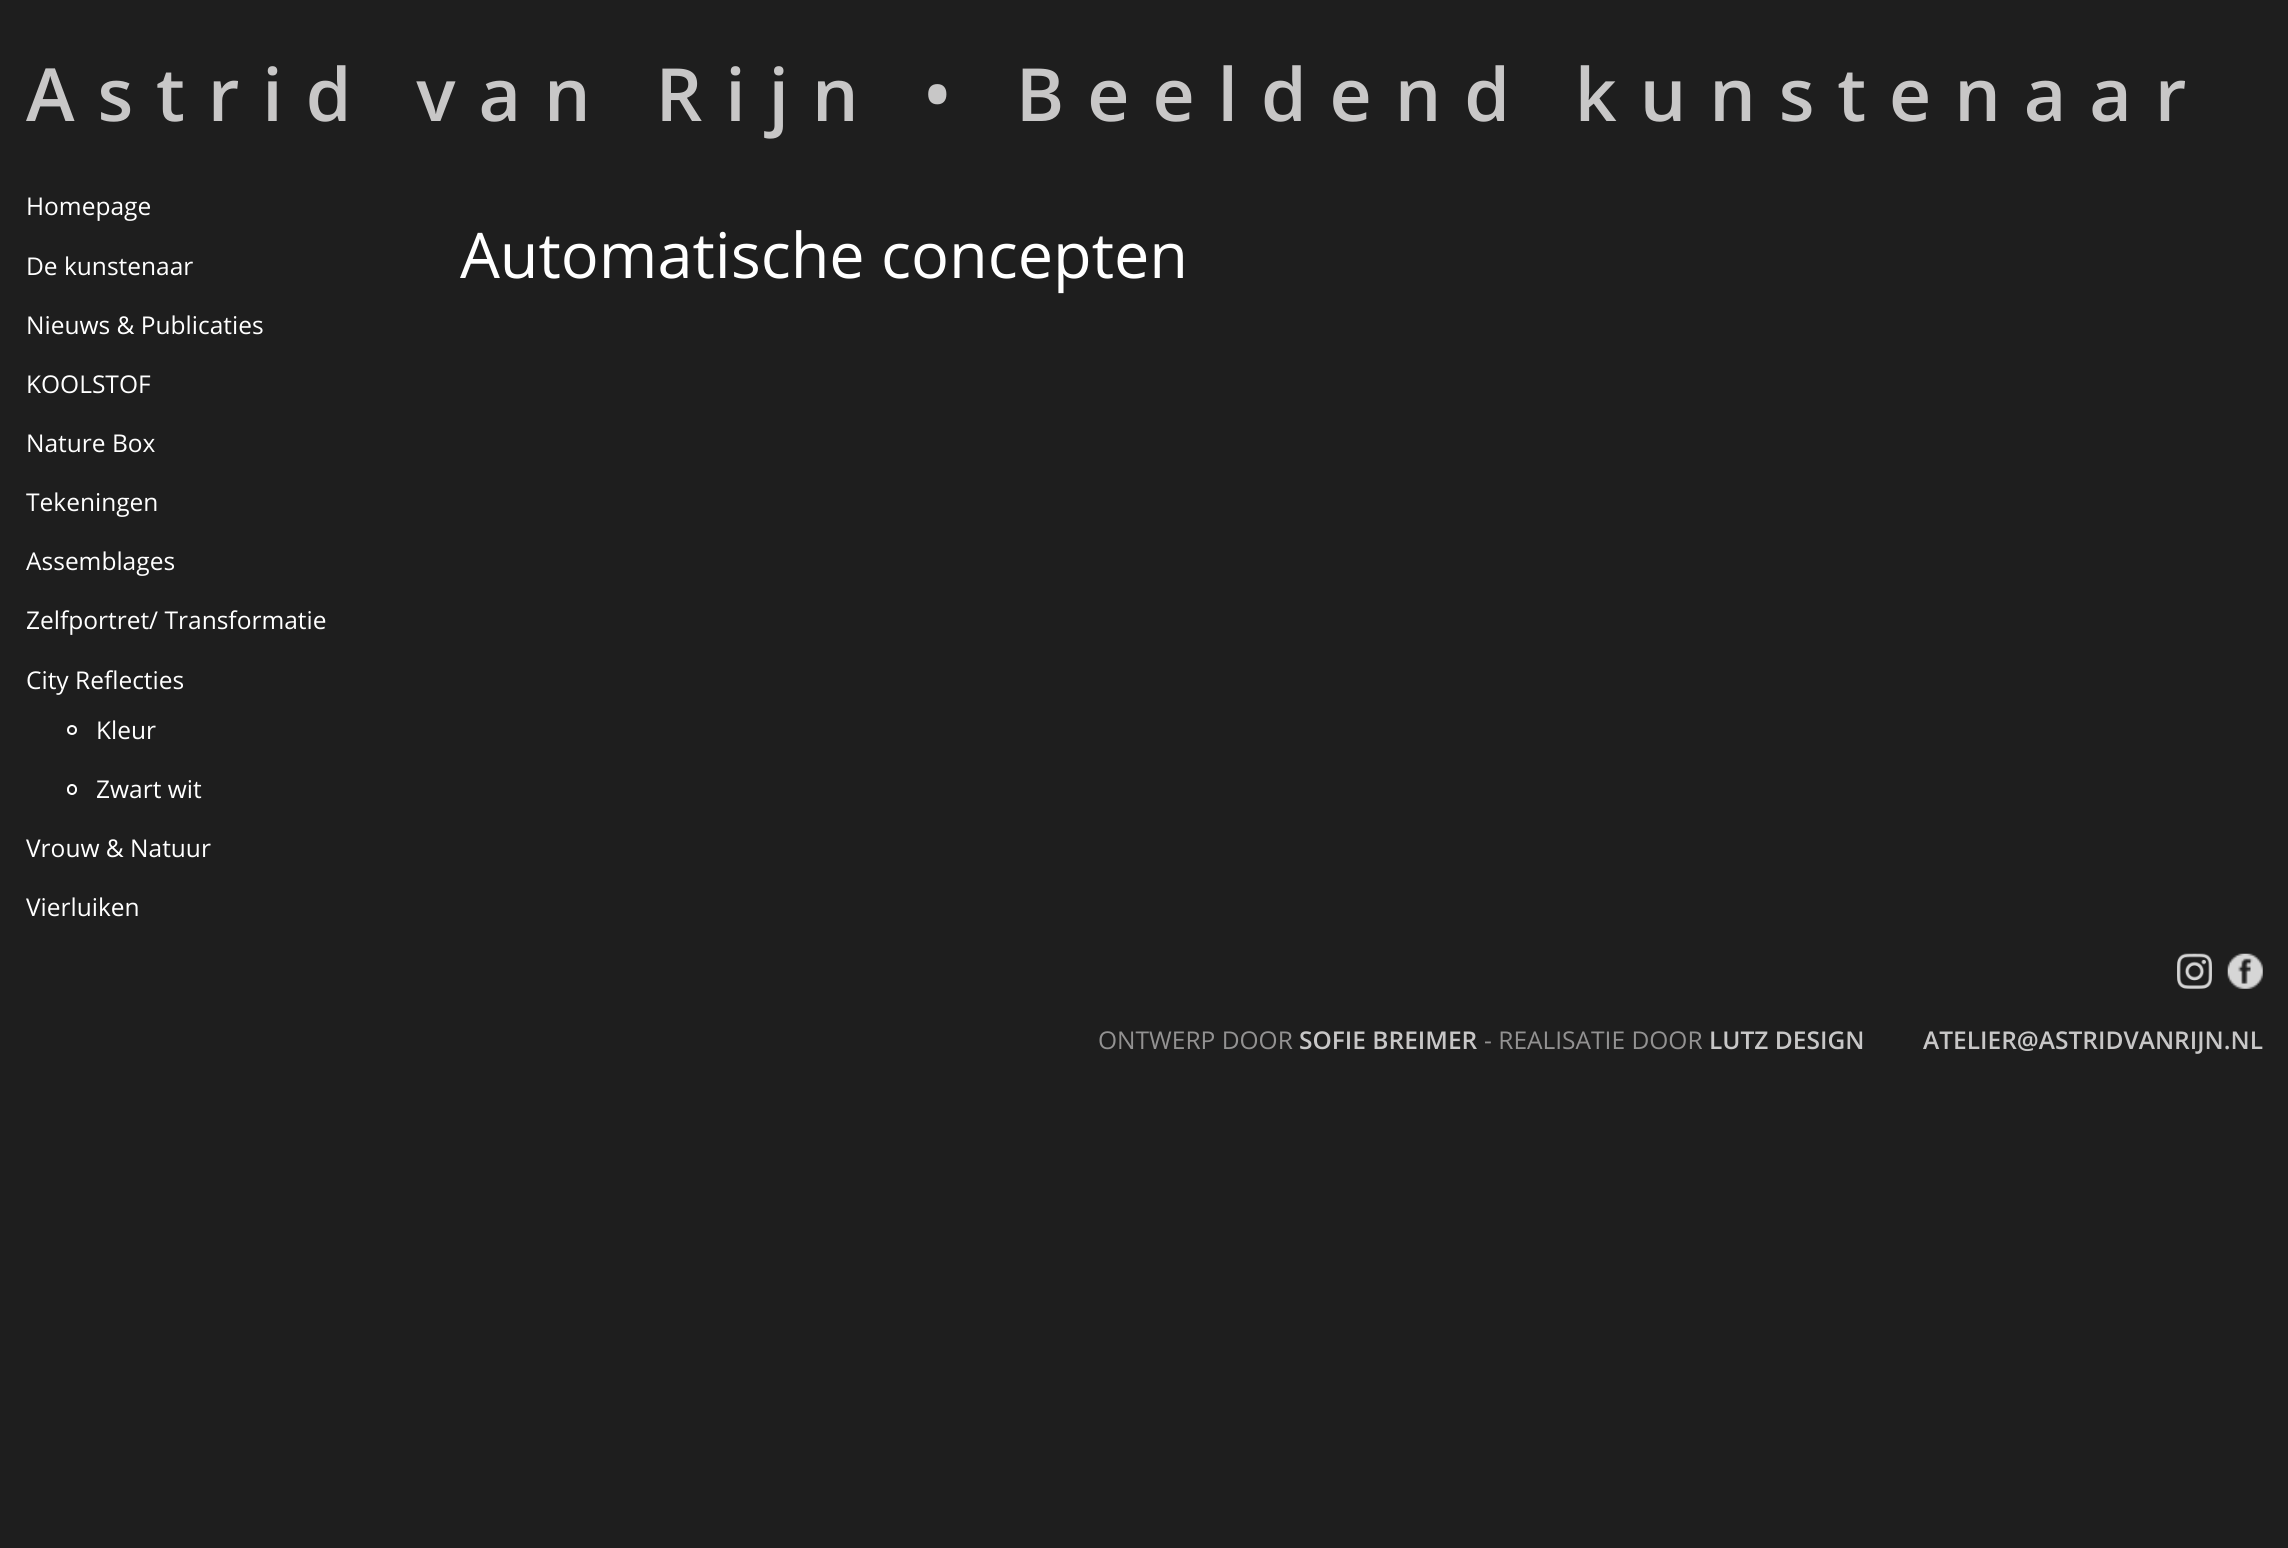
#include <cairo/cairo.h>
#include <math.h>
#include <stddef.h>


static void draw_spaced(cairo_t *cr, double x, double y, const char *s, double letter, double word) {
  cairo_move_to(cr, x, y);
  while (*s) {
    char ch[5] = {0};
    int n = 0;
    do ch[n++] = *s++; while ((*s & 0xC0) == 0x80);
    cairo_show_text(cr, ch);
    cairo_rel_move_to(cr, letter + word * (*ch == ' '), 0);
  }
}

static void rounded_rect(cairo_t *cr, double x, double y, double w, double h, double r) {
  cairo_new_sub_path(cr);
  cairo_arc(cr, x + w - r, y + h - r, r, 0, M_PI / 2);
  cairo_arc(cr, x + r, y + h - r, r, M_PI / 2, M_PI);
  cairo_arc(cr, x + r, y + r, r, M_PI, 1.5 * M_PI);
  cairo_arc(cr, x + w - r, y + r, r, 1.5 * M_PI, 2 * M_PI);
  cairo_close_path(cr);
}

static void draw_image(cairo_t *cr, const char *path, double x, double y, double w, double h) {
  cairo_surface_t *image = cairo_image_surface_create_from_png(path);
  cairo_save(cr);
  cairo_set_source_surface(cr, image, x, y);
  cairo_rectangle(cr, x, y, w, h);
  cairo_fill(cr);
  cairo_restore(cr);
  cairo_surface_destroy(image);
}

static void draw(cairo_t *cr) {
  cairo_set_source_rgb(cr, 30 / 255.0, 30 / 255.0, 30 / 255.0);
  cairo_paint(cr);
  cairo_arc(cr, 72, 730, 4, 0, 2 * M_PI);
  cairo_set_source_rgb(cr, 1, 1, 1);
  cairo_stroke(cr);
  rounded_rect(cr, 68, 785, 8, 9, 4);
  cairo_stroke(cr);
  draw_image(cr, "images/1.png", 2177, 953, 35, 36);
  draw_image(cr, "images/2.png", 2227, 953, 36, 36);
  cairo_select_font_face(cr, "Open Sans SemiBold", CAIRO_FONT_SLANT_NORMAL, CAIRO_FONT_WEIGHT_NORMAL);
  cairo_set_font_size(cr, 73.4);
  cairo_set_source_rgb(cr, 200 / 255.0, 199 / 255.0, 199 / 255.0);
  draw_spaced(cr, 26, 121, "Astrid van Rijn • Beeldend kunstenaar", 22.9, 0);
  cairo_select_font_face(cr, "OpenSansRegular", CAIRO_FONT_SLANT_NORMAL, CAIRO_FONT_WEIGHT_NORMAL);
  cairo_set_font_size(cr, 24.5);
  cairo_set_source_rgb(cr, 1, 1, 1);
  cairo_move_to(cr, 26, 215);
  cairo_show_text(cr, "Homepage");
  cairo_move_to(cr, 26, 275);
  cairo_show_text(cr, "De kunstenaar");
  cairo_move_to(cr, 26, 334);
  cairo_show_text(cr, "Nieuws & Publicaties");
  cairo_move_to(cr, 26, 393);
  cairo_show_text(cr, "KOOLSTOF");
  cairo_move_to(cr, 26, 452);
  cairo_show_text(cr, "Nature Box");
  cairo_move_to(cr, 26, 511);
  cairo_show_text(cr, "Tekeningen");
  cairo_move_to(cr, 26, 570);
  cairo_show_text(cr, "Assemblages");
  cairo_move_to(cr, 26, 629);
  cairo_show_text(cr, "Zelfportret/ Transformatie");
  cairo_move_to(cr, 26, 689);
  cairo_show_text(cr, "City Reflecties");
  cairo_move_to(cr, 96, 739);
  cairo_show_text(cr, "Kleur");
  cairo_move_to(cr, 96, 798);
  cairo_show_text(cr, "Zwart wit");
  cairo_move_to(cr, 26, 857);
  cairo_show_text(cr, "Vrouw & Natuur");
  cairo_move_to(cr, 26, 916);
  cairo_show_text(cr, "Vierluiken");
  cairo_set_font_size(cr, 63);
  cairo_move_to(cr, 460, 278);
  cairo_show_text(cr, "Automatische concepten");
  cairo_set_font_size(cr, 24.5);
  cairo_set_source_rgb(cr, 147 / 255.0, 146 / 255.0, 146 / 255.0);
  cairo_move_to(cr, 1098, 1049);
  cairo_show_text(cr, "ONTWERP DOOR");
  cairo_select_font_face(cr, "Open Sans SemiBold", CAIRO_FONT_SLANT_NORMAL, CAIRO_FONT_WEIGHT_NORMAL);
  cairo_set_source_rgb(cr, 200 / 255.0, 199 / 255.0, 199 / 255.0);
  cairo_move_to(cr, 1299, 1049);
  cairo_show_text(cr, "SOFIE BREIMER");
  cairo_select_font_face(cr, "OpenSansRegular", CAIRO_FONT_SLANT_NORMAL, CAIRO_FONT_WEIGHT_NORMAL);
  cairo_set_source_rgb(cr, 147 / 255.0, 146 / 255.0, 146 / 255.0);
  cairo_move_to(cr, 1484, 1049);
  cairo_show_text(cr, "- REALISATIE DOOR");
  cairo_select_font_face(cr, "Open Sans SemiBold", CAIRO_FONT_SLANT_NORMAL, CAIRO_FONT_WEIGHT_NORMAL);
  cairo_set_source_rgb(cr, 200 / 255.0, 199 / 255.0, 199 / 255.0);
  cairo_move_to(cr, 1709, 1049);
  cairo_show_text(cr, "LUTZ DESIGN");
  cairo_move_to(cr, 1923, 1049);
  cairo_show_text(cr, "ATELIER@ASTRIDVANRIJN.NL");
}

int main(void) {
  cairo_surface_t *surface = cairo_image_surface_create(CAIRO_FORMAT_RGB24, 2288, 1548);
  cairo_t *cr = cairo_create(surface);
  cairo_font_options_t *options = cairo_font_options_create();
  cairo_font_options_set_hint_metrics(options, CAIRO_HINT_METRICS_OFF);
  cairo_font_options_set_hint_style(options, CAIRO_HINT_STYLE_NONE);
  cairo_set_font_options(cr, options);
  cairo_set_miter_limit(cr, 4);
  draw(cr);
  cairo_surface_write_to_png(surface, "out.png");
  cairo_font_options_destroy(options);
  cairo_destroy(cr);
  cairo_surface_destroy(surface);
  return 0;
}
